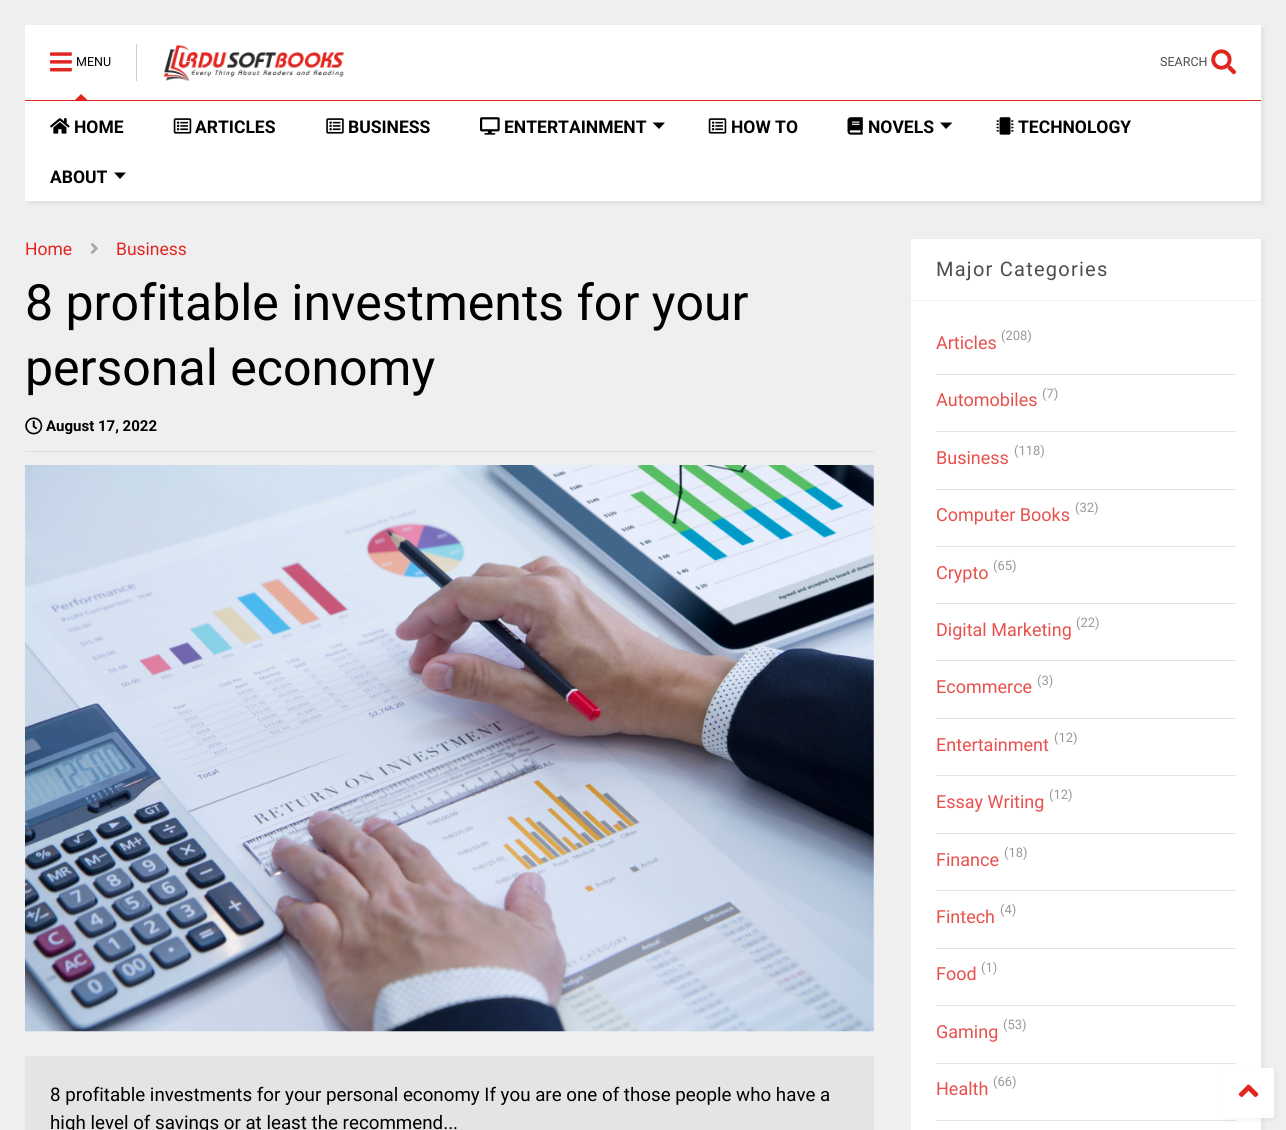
#include <cairo/cairo.h>
#include <math.h>
#include <stddef.h>


static void draw_spaced(cairo_t *cr, double x, double y, const char *s, double letter, double word) {
  cairo_move_to(cr, x, y);
  while (*s) {
    char ch[5] = {0};
    int n = 0;
    do ch[n++] = *s++; while ((*s & 0xC0) == 0x80);
    cairo_show_text(cr, ch);
    cairo_rel_move_to(cr, letter + word * (*ch == ' '), 0);
  }
}

static void rounded_rect(cairo_t *cr, double x, double y, double w, double h, double r) {
  cairo_new_sub_path(cr);
  cairo_arc(cr, x + w - r, y + h - r, r, 0, M_PI / 2);
  cairo_arc(cr, x + r, y + h - r, r, M_PI / 2, M_PI);
  cairo_arc(cr, x + r, y + r, r, M_PI, 1.5 * M_PI);
  cairo_arc(cr, x + w - r, y + r, r, 1.5 * M_PI, 2 * M_PI);
  cairo_close_path(cr);
}

static void draw_shadow(cairo_t *cr, double x, double y, double w, double h, double r, double blur, double alpha) {
  cairo_push_group_with_content(cr, CAIRO_CONTENT_ALPHA);
  cairo_set_operator(cr, CAIRO_OPERATOR_SOURCE);
  for (int i = 15; i >= -15 && fmin(w, h) + blur * i / 3 > 0; i -= 2) {
    double e = blur * i / 6;
    cairo_set_source_rgba(cr, 0, 0, 0, alpha * erfc((i - 1) / 8.5) / 2);
    rounded_rect(cr, x - e, y - e, w + 2 * e, h + 2 * e, fmax(0, fmin(r + e + blur * .6, fmin(w, h) / 2 + e)));
    cairo_fill(cr);
  }
  cairo_pattern_t *soft = cairo_pop_group(cr);
  cairo_mask(cr, soft);
  cairo_pattern_destroy(soft);
}

static void draw_image(cairo_t *cr, const char *path, double x, double y, double w, double h) {
  cairo_surface_t *image = cairo_image_surface_create_from_png(path);
  cairo_save(cr);
  cairo_set_source_surface(cr, image, x, y);
  cairo_rectangle(cr, x, y, w, h);
  cairo_fill(cr);
  cairo_restore(cr);
  cairo_surface_destroy(image);
}

static void draw(cairo_t *cr) {
  cairo_set_source_rgb(cr, 239 / 255.0, 239 / 255.0, 239 / 255.0);
  cairo_paint(cr);
  cairo_set_source_rgb(cr, 119 / 255.0, 119 / 255.0, 119 / 255.0);
  draw_shadow(cr, 28, 28, 1236, 176, 0, 2, 0.12);
  cairo_set_source_rgb(cr, 1, 1, 1);
  cairo_rectangle(cr, 25, 25, 1236, 176);
  cairo_fill(cr);
  draw_image(cr, "images/1.png", 50, 52, 22, 20);
  cairo_set_source_rgb(cr, 225 / 255.0, 38 / 255.0, 32 / 255.0);
  cairo_new_path(cr);
  cairo_move_to(cr, 87.5, 100);
  cairo_line_to(cr, 75, 100);
  cairo_line_to(cr, 81, 94);
  cairo_close_path(cr);
  cairo_fill(cr);
  cairo_set_source_rgb(cr, 207 / 255.0, 207 / 255.0, 207 / 255.0);
  cairo_rectangle(cr, 136, 44, 1, 37);
  cairo_fill(cr);
  draw_image(cr, "images/2.png", 163, 44, 182, 37);
  draw_image(cr, "images/3.png", 1211, 49, 26, 26);
  cairo_set_source_rgb(cr, 225 / 255.0, 38 / 255.0, 32 / 255.0);
  cairo_rectangle(cr, 25, 100, 1236, 1);
  cairo_fill(cr);
  draw_image(cr, "images/4.png", 50, 118, 20, 16);
  draw_image(cr, "images/5.png", 173, 118, 19, 16);
  draw_image(cr, "images/6.png", 326, 118, 18, 16);
  draw_image(cr, "images/7.png", 480, 117, 20, 18);
  cairo_set_source_rgb(cr, 0, 0, 0);
  cairo_new_path(cr);
  cairo_move_to(cr, 652.5, 122.5);
  cairo_line_to(cr, 665, 122.5);
  cairo_line_to(cr, 659, 129);
  cairo_close_path(cr);
  cairo_fill(cr);
  draw_image(cr, "images/5.png", 708, 118, 19, 16);
  draw_image(cr, "images/8.png", 847, 117, 16, 18);
  cairo_new_path(cr);
  cairo_move_to(cr, 940, 122.5);
  cairo_line_to(cr, 952.5, 122.5);
  cairo_line_to(cr, 946, 129);
  cairo_close_path(cr);
  cairo_fill(cr);
  draw_image(cr, "images/9.png", 996, 117, 18, 18);
  cairo_new_path(cr);
  cairo_move_to(cr, 114, 172.5);
  cairo_line_to(cr, 126, 172.5);
  cairo_line_to(cr, 120, 179);
  cairo_close_path(cr);
  cairo_fill(cr);
  draw_image(cr, "images/10.png", 91, 243, 7, 11);
  cairo_set_source_rgb(cr, 221 / 255.0, 221 / 255.0, 221 / 255.0);
  cairo_rectangle(cr, 25, 451, 849, 1);
  cairo_fill(cr);
  draw_image(cr, "images/11.png", 25, 417, 18, 18);
  draw_image(cr, "images/12.png", 25, 465, 849, 567);
  cairo_set_source_rgb(cr, 228 / 255.0, 228 / 255.0, 228 / 255.0);
  cairo_rectangle(cr, 25, 1056, 849, 74);
  cairo_fill(cr);
  cairo_set_source_rgb(cr, 0, 0, 0);
  draw_shadow(cr, 914, 241, 350, 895, 0, 2, 0.05);
  cairo_set_source_rgb(cr, 1, 1, 1);
  cairo_rectangle(cr, 911, 239, 350, 891);
  cairo_fill(cr);
  cairo_set_source_rgb(cr, 244 / 255.0, 244 / 255.0, 244 / 255.0);
  cairo_rectangle(cr, 911, 300, 350, 1);
  cairo_fill(cr);
  cairo_set_source_rgb(cr, 228 / 255.0, 228 / 255.0, 228 / 255.0);
  cairo_rectangle(cr, 936, 374, 300, 1);
  cairo_fill(cr);
  cairo_rectangle(cr, 936, 431, 300, 1);
  cairo_fill(cr);
  cairo_rectangle(cr, 936, 489, 300, 1);
  cairo_fill(cr);
  cairo_rectangle(cr, 936, 546, 300, 1);
  cairo_fill(cr);
  cairo_rectangle(cr, 936, 603, 300, 1);
  cairo_fill(cr);
  cairo_rectangle(cr, 936, 660, 300, 1);
  cairo_fill(cr);
  cairo_rectangle(cr, 936, 718, 300, 1);
  cairo_fill(cr);
  cairo_rectangle(cr, 936, 775, 300, 1);
  cairo_fill(cr);
  cairo_rectangle(cr, 936, 833, 300, 1);
  cairo_fill(cr);
  cairo_rectangle(cr, 936, 890, 300, 1);
  cairo_fill(cr);
  cairo_rectangle(cr, 936, 948, 300, 1);
  cairo_fill(cr);
  cairo_rectangle(cr, 936, 1005, 300, 1);
  cairo_fill(cr);
  cairo_rectangle(cr, 936, 1063, 300, 1);
  cairo_fill(cr);
  cairo_rectangle(cr, 936, 1120, 300, 1);
  cairo_fill(cr);
  cairo_set_source_rgb(cr, 0, 0, 0);
  draw_shadow(cr, 1226, 1070, 50, 50, 2.5, 2, 0.05);
  cairo_set_source_rgb(cr, 1, 1, 1);
  rounded_rect(cr, 1224, 1068, 50, 50, 2.5);
  cairo_fill(cr);
  draw_image(cr, "images/13.png", 1238, 1084, 21, 14);
  cairo_select_font_face(cr, "Roboto", CAIRO_FONT_SLANT_NORMAL, CAIRO_FONT_WEIGHT_NORMAL);
  cairo_set_font_size(cr, 12.5);
  cairo_set_source_rgb(cr, 0, 0, 0);
  cairo_move_to(cr, 76, 66);
  cairo_show_text(cr, "MENU");
  cairo_set_source_rgb(cr, 77 / 255.0, 77 / 255.0, 77 / 255.0);
  cairo_move_to(cr, 1160, 66);
  cairo_show_text(cr, "SEARCH");
  cairo_select_font_face(cr, "Roboto", CAIRO_FONT_SLANT_NORMAL, CAIRO_FONT_WEIGHT_BOLD);
  cairo_set_font_size(cr, 17.5);
  cairo_set_source_rgb(cr, 0, 0, 0);
  cairo_move_to(cr, 74, 133);
  cairo_show_text(cr, "HOME");
  cairo_move_to(cr, 195, 133);
  cairo_show_text(cr, "ARTICLES");
  cairo_move_to(cr, 348, 133);
  cairo_show_text(cr, "BUSINESS");
  cairo_move_to(cr, 504, 133);
  cairo_show_text(cr, "ENTERTAINMENT");
  cairo_move_to(cr, 731, 133);
  cairo_show_text(cr, "HOW TO");
  cairo_move_to(cr, 868, 133);
  cairo_show_text(cr, "NOVELS");
  cairo_move_to(cr, 1018, 133);
  cairo_show_text(cr, "TECHNOLOGY");
  cairo_move_to(cr, 50, 183);
  cairo_show_text(cr, "ABOUT");
  cairo_select_font_face(cr, "Roboto", CAIRO_FONT_SLANT_NORMAL, CAIRO_FONT_WEIGHT_NORMAL);
  cairo_set_source_rgb(cr, 225 / 255.0, 38 / 255.0, 32 / 255.0);
  cairo_move_to(cr, 25, 255);
  cairo_show_text(cr, "Home");
  cairo_move_to(cr, 116, 255);
  cairo_show_text(cr, "Business");
  cairo_set_font_size(cr, 50);
  cairo_set_source_rgb(cr, 0, 0, 0);
  cairo_move_to(cr, 25, 320);
  cairo_show_text(cr, "8 profitable investments for your");
  cairo_move_to(cr, 25, 385);
  cairo_show_text(cr, "personal economy");
  cairo_select_font_face(cr, "Roboto", CAIRO_FONT_SLANT_NORMAL, CAIRO_FONT_WEIGHT_BOLD);
  cairo_set_font_size(cr, 15);
  cairo_move_to(cr, 46, 431);
  cairo_show_text(cr, "August 17, 2022");
  cairo_select_font_face(cr, "Roboto", CAIRO_FONT_SLANT_NORMAL, CAIRO_FONT_WEIGHT_NORMAL);
  cairo_set_font_size(cr, 18.75);
  cairo_move_to(cr, 50, 1101);
  cairo_show_text(cr, "8 profitable investments for your personal economy If you are one of those people who have a");
  cairo_move_to(cr, 50, 1129);
  cairo_show_text(cr, "high level of savings or at least the recommend...");
  cairo_set_font_size(cr, 20);
  cairo_set_source_rgb(cr, 77 / 255.0, 77 / 255.0, 77 / 255.0);
  draw_spaced(cr, 936, 276, "Major Categories", 1.25, 0);
  cairo_set_font_size(cr, 18);
  cairo_set_source_rgb(cr, 231 / 255.0, 81 / 255.0, 77 / 255.0);
  cairo_move_to(cr, 936, 349);
  cairo_show_text(cr, "Articles");
  cairo_set_font_size(cr, 13);
  cairo_set_source_rgb(cr, 153 / 255.0, 153 / 255.0, 153 / 255.0);
  cairo_move_to(cr, 1001, 340);
  cairo_show_text(cr, "(208)");
  cairo_set_font_size(cr, 18);
  cairo_set_source_rgb(cr, 231 / 255.0, 81 / 255.0, 77 / 255.0);
  cairo_move_to(cr, 936, 406);
  cairo_show_text(cr, "Automobiles");
  cairo_set_font_size(cr, 13);
  cairo_set_source_rgb(cr, 153 / 255.0, 153 / 255.0, 153 / 255.0);
  cairo_move_to(cr, 1042, 398);
  cairo_show_text(cr, "(7)");
  cairo_set_font_size(cr, 18);
  cairo_set_source_rgb(cr, 231 / 255.0, 81 / 255.0, 77 / 255.0);
  cairo_move_to(cr, 936, 464);
  cairo_show_text(cr, "Business");
  cairo_set_font_size(cr, 13);
  cairo_set_source_rgb(cr, 153 / 255.0, 153 / 255.0, 153 / 255.0);
  cairo_move_to(cr, 1014, 455);
  cairo_show_text(cr, "(118)");
  cairo_set_font_size(cr, 18);
  cairo_set_source_rgb(cr, 231 / 255.0, 81 / 255.0, 77 / 255.0);
  cairo_move_to(cr, 936, 521);
  cairo_show_text(cr, "Computer Books");
  cairo_set_font_size(cr, 13);
  cairo_set_source_rgb(cr, 153 / 255.0, 153 / 255.0, 153 / 255.0);
  cairo_move_to(cr, 1075, 512);
  cairo_show_text(cr, "(32)");
  cairo_set_font_size(cr, 18);
  cairo_set_source_rgb(cr, 231 / 255.0, 81 / 255.0, 77 / 255.0);
  cairo_move_to(cr, 936, 579);
  cairo_show_text(cr, "Crypto");
  cairo_set_font_size(cr, 13);
  cairo_set_source_rgb(cr, 153 / 255.0, 153 / 255.0, 153 / 255.0);
  cairo_move_to(cr, 993, 570);
  cairo_show_text(cr, "(65)");
  cairo_set_font_size(cr, 18);
  cairo_set_source_rgb(cr, 231 / 255.0, 81 / 255.0, 77 / 255.0);
  cairo_move_to(cr, 936, 636);
  cairo_show_text(cr, "Digital Marketing");
  cairo_set_font_size(cr, 13);
  cairo_set_source_rgb(cr, 153 / 255.0, 153 / 255.0, 153 / 255.0);
  cairo_move_to(cr, 1076, 627);
  cairo_show_text(cr, "(22)");
  cairo_set_font_size(cr, 18);
  cairo_set_source_rgb(cr, 231 / 255.0, 81 / 255.0, 77 / 255.0);
  cairo_move_to(cr, 936, 693);
  cairo_show_text(cr, "Ecommerce");
  cairo_set_font_size(cr, 13);
  cairo_set_source_rgb(cr, 153 / 255.0, 153 / 255.0, 153 / 255.0);
  cairo_move_to(cr, 1037, 685);
  cairo_show_text(cr, "(3)");
  cairo_set_font_size(cr, 18);
  cairo_set_source_rgb(cr, 231 / 255.0, 81 / 255.0, 77 / 255.0);
  cairo_move_to(cr, 936, 751);
  cairo_show_text(cr, "Entertainment");
  cairo_set_font_size(cr, 13);
  cairo_set_source_rgb(cr, 153 / 255.0, 153 / 255.0, 153 / 255.0);
  cairo_move_to(cr, 1054, 742);
  cairo_show_text(cr, "(12)");
  cairo_set_font_size(cr, 18);
  cairo_set_source_rgb(cr, 231 / 255.0, 81 / 255.0, 77 / 255.0);
  cairo_move_to(cr, 936, 808);
  cairo_show_text(cr, "Essay Writing");
  cairo_set_font_size(cr, 13);
  cairo_set_source_rgb(cr, 153 / 255.0, 153 / 255.0, 153 / 255.0);
  cairo_move_to(cr, 1049, 799);
  cairo_show_text(cr, "(12)");
  cairo_set_font_size(cr, 18);
  cairo_set_source_rgb(cr, 231 / 255.0, 81 / 255.0, 77 / 255.0);
  cairo_move_to(cr, 936, 866);
  cairo_show_text(cr, "Finance");
  cairo_set_font_size(cr, 13);
  cairo_set_source_rgb(cr, 153 / 255.0, 153 / 255.0, 153 / 255.0);
  cairo_move_to(cr, 1004, 857);
  cairo_show_text(cr, "(18)");
  cairo_set_font_size(cr, 18);
  cairo_set_source_rgb(cr, 231 / 255.0, 81 / 255.0, 77 / 255.0);
  cairo_move_to(cr, 936, 923);
  cairo_show_text(cr, "Fintech");
  cairo_set_font_size(cr, 13);
  cairo_set_source_rgb(cr, 153 / 255.0, 153 / 255.0, 153 / 255.0);
  cairo_move_to(cr, 1000, 914);
  cairo_show_text(cr, "(4)");
  cairo_set_font_size(cr, 18);
  cairo_set_source_rgb(cr, 231 / 255.0, 81 / 255.0, 77 / 255.0);
  cairo_move_to(cr, 936, 980);
  cairo_show_text(cr, "Food");
  cairo_set_font_size(cr, 13);
  cairo_set_source_rgb(cr, 153 / 255.0, 153 / 255.0, 153 / 255.0);
  cairo_move_to(cr, 981, 972);
  cairo_show_text(cr, "(1)");
  cairo_set_font_size(cr, 18);
  cairo_set_source_rgb(cr, 231 / 255.0, 81 / 255.0, 77 / 255.0);
  cairo_move_to(cr, 936, 1038);
  cairo_show_text(cr, "Gaming");
  cairo_set_font_size(cr, 13);
  cairo_set_source_rgb(cr, 153 / 255.0, 153 / 255.0, 153 / 255.0);
  cairo_move_to(cr, 1003, 1029);
  cairo_show_text(cr, "(53)");
  cairo_set_font_size(cr, 18);
  cairo_set_source_rgb(cr, 231 / 255.0, 81 / 255.0, 77 / 255.0);
  cairo_move_to(cr, 936, 1095);
  cairo_show_text(cr, "Health");
  cairo_set_font_size(cr, 13);
  cairo_set_source_rgb(cr, 153 / 255.0, 153 / 255.0, 153 / 255.0);
  cairo_move_to(cr, 993, 1086);
  cairo_show_text(cr, "(66)");
}

int main(void) {
  cairo_surface_t *surface = cairo_image_surface_create(CAIRO_FORMAT_RGB24, 1286, 1130);
  cairo_t *cr = cairo_create(surface);
  cairo_font_options_t *options = cairo_font_options_create();
  cairo_font_options_set_hint_metrics(options, CAIRO_HINT_METRICS_OFF);
  cairo_font_options_set_hint_style(options, CAIRO_HINT_STYLE_NONE);
  cairo_set_font_options(cr, options);
  cairo_set_miter_limit(cr, 4);
  draw(cr);
  cairo_surface_write_to_png(surface, "out.png");
  cairo_font_options_destroy(options);
  cairo_destroy(cr);
  cairo_surface_destroy(surface);
  return 0;
}
